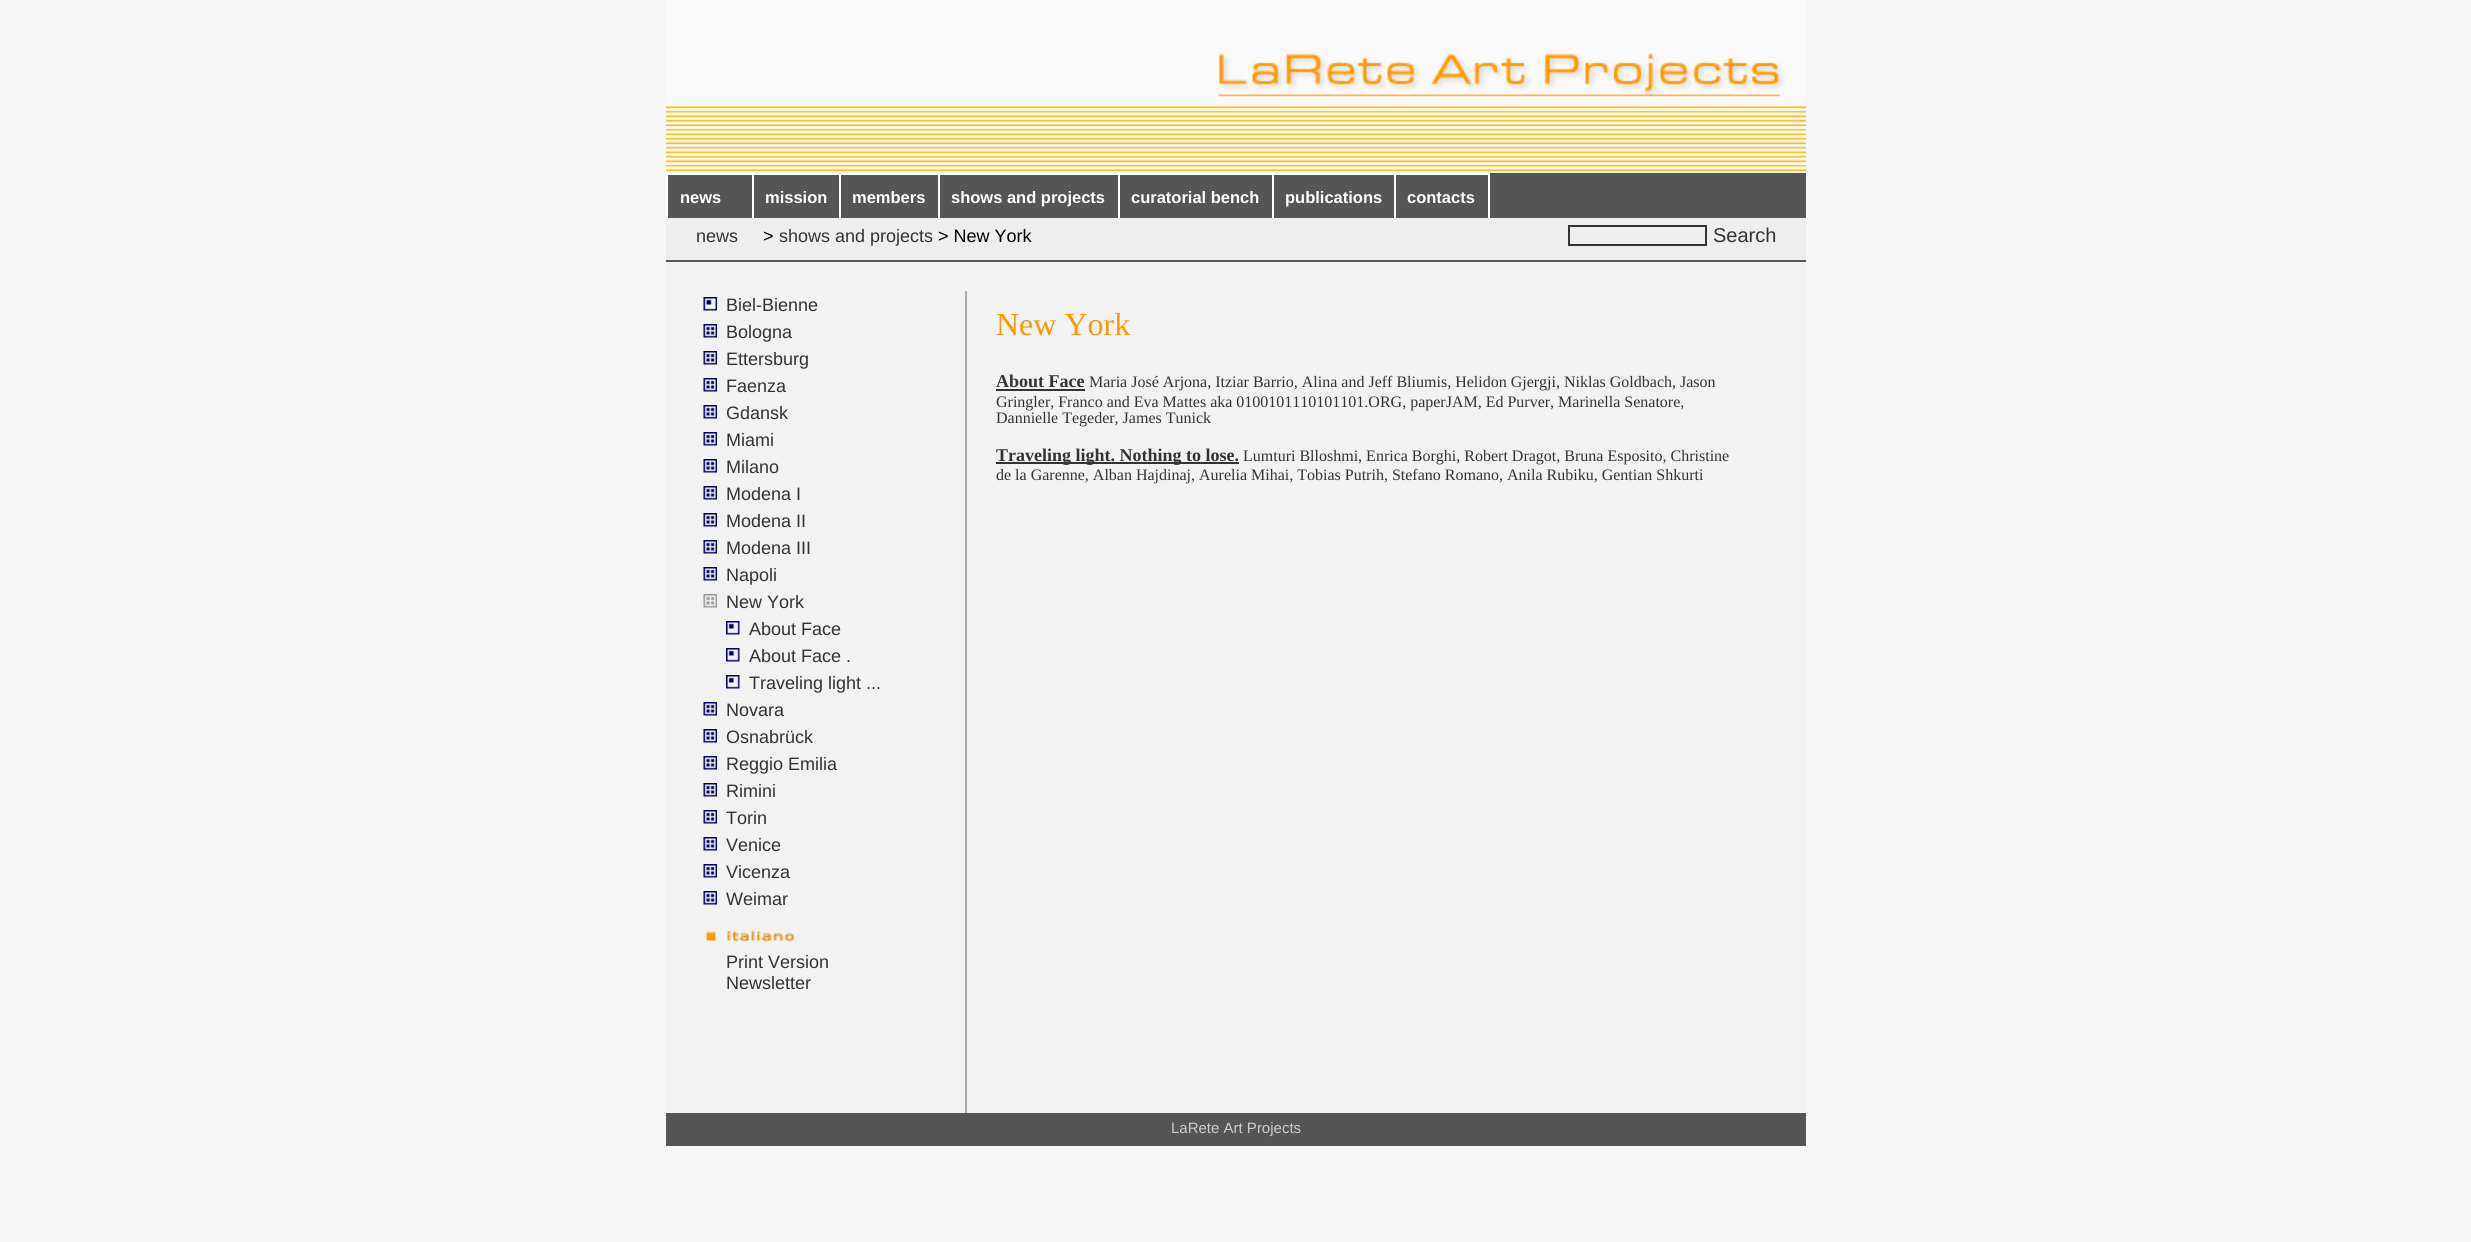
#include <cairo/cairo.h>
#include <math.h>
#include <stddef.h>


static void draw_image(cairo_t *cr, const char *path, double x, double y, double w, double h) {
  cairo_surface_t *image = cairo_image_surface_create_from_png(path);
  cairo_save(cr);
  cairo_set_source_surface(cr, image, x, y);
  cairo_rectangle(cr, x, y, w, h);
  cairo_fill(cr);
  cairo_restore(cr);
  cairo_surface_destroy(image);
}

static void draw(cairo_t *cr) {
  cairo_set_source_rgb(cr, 247 / 255.0, 247 / 255.0, 247 / 255.0);
  cairo_paint(cr);
  cairo_set_source_rgb(cr, 242 / 255.0, 242 / 255.0, 242 / 255.0);
  cairo_rectangle(cr, 666, 172, 1140, 941);
  cairo_fill(cr);
  draw_image(cr, "images/1.png", 666, 0, 1140, 172);
  cairo_set_source_rgb(cr, 85 / 255.0, 85 / 255.0, 85 / 255.0);
  cairo_rectangle(cr, 668, 173, 1138, 45);
  cairo_fill(cr);
  cairo_set_source_rgb(cr, 1, 1, 1);
  cairo_rectangle(cr, 666, 173, 824, 2);
  cairo_fill(cr);
  cairo_rectangle(cr, 666, 173, 2, 45);
  cairo_fill(cr);
  cairo_rectangle(cr, 752, 174, 2, 44);
  cairo_fill(cr);
  cairo_rectangle(cr, 839, 174, 2, 44);
  cairo_fill(cr);
  cairo_rectangle(cr, 938, 174, 2, 44);
  cairo_fill(cr);
  cairo_rectangle(cr, 1118, 174, 2, 44);
  cairo_fill(cr);
  cairo_rectangle(cr, 1272, 174, 2, 44);
  cairo_fill(cr);
  cairo_rectangle(cr, 1394, 174, 2, 44);
  cairo_fill(cr);
  cairo_rectangle(cr, 1488, 174, 2, 44);
  cairo_fill(cr);
  cairo_set_source_rgb(cr, 238 / 255.0, 238 / 255.0, 238 / 255.0);
  cairo_rectangle(cr, 666, 218, 1140, 42);
  cairo_fill(cr);
  cairo_set_source_rgb(cr, 85 / 255.0, 85 / 255.0, 85 / 255.0);
  cairo_rectangle(cr, 666, 260, 1140, 2);
  cairo_fill(cr);
  cairo_rectangle(cr, 1569, 226, 137, 19);
  cairo_set_source_rgb(cr, 51 / 255.0, 51 / 255.0, 51 / 255.0);
  cairo_stroke(cr);
  cairo_set_source_rgb(cr, 170 / 255.0, 170 / 255.0, 170 / 255.0);
  cairo_rectangle(cr, 965, 291, 2, 822);
  cairo_fill(cr);
  draw_image(cr, "images/2.png", 703, 297, 14, 14);
  draw_image(cr, "images/3.png", 703, 324, 14, 14);
  draw_image(cr, "images/3.png", 703, 351, 14, 14);
  draw_image(cr, "images/3.png", 703, 378, 14, 14);
  draw_image(cr, "images/3.png", 703, 405, 14, 14);
  draw_image(cr, "images/3.png", 703, 432, 14, 14);
  draw_image(cr, "images/3.png", 703, 459, 14, 14);
  draw_image(cr, "images/3.png", 703, 486, 14, 14);
  draw_image(cr, "images/3.png", 703, 513, 14, 14);
  draw_image(cr, "images/3.png", 703, 540, 14, 14);
  draw_image(cr, "images/3.png", 703, 567, 14, 14);
  draw_image(cr, "images/4.png", 703, 594, 14, 14);
  draw_image(cr, "images/5.png", 726, 621, 14, 14);
  draw_image(cr, "images/5.png", 726, 648, 14, 14);
  draw_image(cr, "images/5.png", 726, 675, 14, 14);
  draw_image(cr, "images/3.png", 703, 702, 14, 14);
  draw_image(cr, "images/3.png", 703, 729, 14, 14);
  draw_image(cr, "images/3.png", 703, 756, 14, 14);
  draw_image(cr, "images/3.png", 703, 783, 14, 14);
  draw_image(cr, "images/3.png", 703, 810, 14, 14);
  draw_image(cr, "images/3.png", 703, 837, 14, 14);
  draw_image(cr, "images/3.png", 703, 864, 14, 14);
  draw_image(cr, "images/3.png", 703, 891, 14, 14);
  draw_image(cr, "images/6.png", 706, 929, 90, 14);
  cairo_set_source_rgb(cr, 51 / 255.0, 51 / 255.0, 51 / 255.0);
  cairo_rectangle(cr, 996, 389, 89, 2);
  cairo_fill(cr);
  cairo_rectangle(cr, 996, 462, 243, 2);
  cairo_fill(cr);
  cairo_set_source_rgb(cr, 85 / 255.0, 85 / 255.0, 85 / 255.0);
  cairo_rectangle(cr, 666, 1113, 1140, 33);
  cairo_fill(cr);
  cairo_select_font_face(cr, "Liberation Sans", CAIRO_FONT_SLANT_NORMAL, CAIRO_FONT_WEIGHT_BOLD);
  cairo_set_font_size(cr, 16.5);
  cairo_set_source_rgb(cr, 1, 1, 1);
  cairo_move_to(cr, 680, 203);
  cairo_show_text(cr, "news");
  cairo_move_to(cr, 765, 203);
  cairo_show_text(cr, "mission");
  cairo_move_to(cr, 852, 203);
  cairo_show_text(cr, "members");
  cairo_move_to(cr, 951, 203);
  cairo_show_text(cr, "shows and projects");
  cairo_move_to(cr, 1131, 203);
  cairo_show_text(cr, "curatorial bench");
  cairo_move_to(cr, 1285, 203);
  cairo_show_text(cr, "publications");
  cairo_move_to(cr, 1407, 203);
  cairo_show_text(cr, "contacts");
  cairo_select_font_face(cr, "Liberation Sans", CAIRO_FONT_SLANT_NORMAL, CAIRO_FONT_WEIGHT_NORMAL);
  cairo_set_font_size(cr, 18);
  cairo_set_source_rgb(cr, 51 / 255.0, 51 / 255.0, 51 / 255.0);
  cairo_move_to(cr, 696, 242);
  cairo_show_text(cr, "news");
  cairo_set_source_rgb(cr, 0, 0, 0);
  cairo_move_to(cr, 763, 242);
  cairo_show_text(cr, ">");
  cairo_set_source_rgb(cr, 51 / 255.0, 51 / 255.0, 51 / 255.0);
  cairo_move_to(cr, 779, 242);
  cairo_show_text(cr, "shows and projects");
  cairo_set_source_rgb(cr, 0, 0, 0);
  cairo_move_to(cr, 938, 242);
  cairo_show_text(cr, "> New York");
  cairo_set_font_size(cr, 20);
  cairo_set_source_rgb(cr, 51 / 255.0, 51 / 255.0, 51 / 255.0);
  cairo_move_to(cr, 1713, 242);
  cairo_show_text(cr, "Search");
  cairo_set_font_size(cr, 18);
  cairo_move_to(cr, 726, 311);
  cairo_show_text(cr, "Biel-Bienne");
  cairo_move_to(cr, 726, 338);
  cairo_show_text(cr, "Bologna");
  cairo_move_to(cr, 726, 365);
  cairo_show_text(cr, "Ettersburg");
  cairo_move_to(cr, 726, 392);
  cairo_show_text(cr, "Faenza");
  cairo_move_to(cr, 726, 419);
  cairo_show_text(cr, "Gdansk");
  cairo_move_to(cr, 726, 446);
  cairo_show_text(cr, "Miami");
  cairo_move_to(cr, 726, 473);
  cairo_show_text(cr, "Milano");
  cairo_move_to(cr, 726, 500);
  cairo_show_text(cr, "Modena I");
  cairo_move_to(cr, 726, 527);
  cairo_show_text(cr, "Modena II");
  cairo_move_to(cr, 726, 554);
  cairo_show_text(cr, "Modena III");
  cairo_move_to(cr, 726, 581);
  cairo_show_text(cr, "Napoli");
  cairo_move_to(cr, 726, 608);
  cairo_show_text(cr, "New York");
  cairo_move_to(cr, 749, 635);
  cairo_show_text(cr, "About Face");
  cairo_move_to(cr, 749, 662);
  cairo_show_text(cr, "About Face .");
  cairo_move_to(cr, 749, 689);
  cairo_show_text(cr, "Traveling light ...");
  cairo_move_to(cr, 726, 716);
  cairo_show_text(cr, "Novara");
  cairo_move_to(cr, 726, 743);
  cairo_show_text(cr, "Osnabrück");
  cairo_move_to(cr, 726, 770);
  cairo_show_text(cr, "Reggio Emilia");
  cairo_move_to(cr, 726, 797);
  cairo_show_text(cr, "Rimini");
  cairo_move_to(cr, 726, 824);
  cairo_show_text(cr, "Torin");
  cairo_move_to(cr, 726, 851);
  cairo_show_text(cr, "Venice");
  cairo_move_to(cr, 726, 878);
  cairo_show_text(cr, "Vicenza");
  cairo_move_to(cr, 726, 905);
  cairo_show_text(cr, "Weimar");
  cairo_move_to(cr, 726, 968);
  cairo_show_text(cr, "Print Version");
  cairo_move_to(cr, 726, 989);
  cairo_show_text(cr, "Newsletter");
  cairo_select_font_face(cr, "Liberation Serif", CAIRO_FONT_SLANT_NORMAL, CAIRO_FONT_WEIGHT_NORMAL);
  cairo_set_font_size(cr, 32);
  cairo_set_source_rgb(cr, 1, 153 / 255.0, 0);
  cairo_move_to(cr, 996, 335);
  cairo_show_text(cr, "New York");
  cairo_select_font_face(cr, "Liberation Serif", CAIRO_FONT_SLANT_NORMAL, CAIRO_FONT_WEIGHT_BOLD);
  cairo_set_font_size(cr, 18);
  cairo_set_source_rgb(cr, 51 / 255.0, 51 / 255.0, 51 / 255.0);
  cairo_move_to(cr, 996, 387);
  cairo_show_text(cr, "About Face");
  cairo_select_font_face(cr, "Liberation Serif", CAIRO_FONT_SLANT_NORMAL, CAIRO_FONT_WEIGHT_NORMAL);
  cairo_set_font_size(cr, 16);
  cairo_move_to(cr, 1089, 387);
  cairo_show_text(cr, "Maria José Arjona, Itziar Barrio, Alina and Jeff Bliumis, Helidon Gjergji,");
  cairo_move_to(cr, 1564, 387);
  cairo_show_text(cr, "Niklas Goldbach, Jason");
  cairo_move_to(cr, 996, 407);
  cairo_show_text(cr, "Gringler, Franco and Eva Mattes aka 0100101110101101.ORG, paperJAM, Ed Purver, Marinella Senatore,");
  cairo_move_to(cr, 996, 423);
  cairo_show_text(cr, "Dannielle Tegeder, James Tunick");
  cairo_select_font_face(cr, "Liberation Serif", CAIRO_FONT_SLANT_NORMAL, CAIRO_FONT_WEIGHT_BOLD);
  cairo_set_font_size(cr, 18);
  cairo_move_to(cr, 996, 461);
  cairo_show_text(cr, "Traveling light. Nothing to lose.");
  cairo_select_font_face(cr, "Liberation Serif", CAIRO_FONT_SLANT_NORMAL, CAIRO_FONT_WEIGHT_NORMAL);
  cairo_set_font_size(cr, 16);
  cairo_move_to(cr, 1243, 461);
  cairo_show_text(cr, "Lumturi Blloshmi, Enrica Borghi, Robert Dragot, Bruna Esposito, Christine");
  cairo_move_to(cr, 996, 480);
  cairo_show_text(cr, "de la Garenne, Alban Hajdinaj, Aurelia Mihai, Tobias Putrih, Stefano Romano, Anila Rubiku, Gentian Shkurti");
  cairo_select_font_face(cr, "Liberation Sans", CAIRO_FONT_SLANT_NORMAL, CAIRO_FONT_WEIGHT_NORMAL);
  cairo_set_font_size(cr, 15);
  cairo_set_source_rgb(cr, 204 / 255.0, 204 / 255.0, 204 / 255.0);
  cairo_move_to(cr, 1171, 1133);
  cairo_show_text(cr, "LaRete Art Projects");
}

int main(void) {
  cairo_surface_t *surface = cairo_image_surface_create(CAIRO_FORMAT_RGB24, 2471, 1242);
  cairo_t *cr = cairo_create(surface);
  cairo_font_options_t *options = cairo_font_options_create();
  cairo_font_options_set_hint_metrics(options, CAIRO_HINT_METRICS_OFF);
  cairo_font_options_set_hint_style(options, CAIRO_HINT_STYLE_NONE);
  cairo_set_font_options(cr, options);
  cairo_set_miter_limit(cr, 4);
  draw(cr);
  cairo_surface_write_to_png(surface, "out.png");
  cairo_font_options_destroy(options);
  cairo_destroy(cr);
  cairo_surface_destroy(surface);
  return 0;
}
